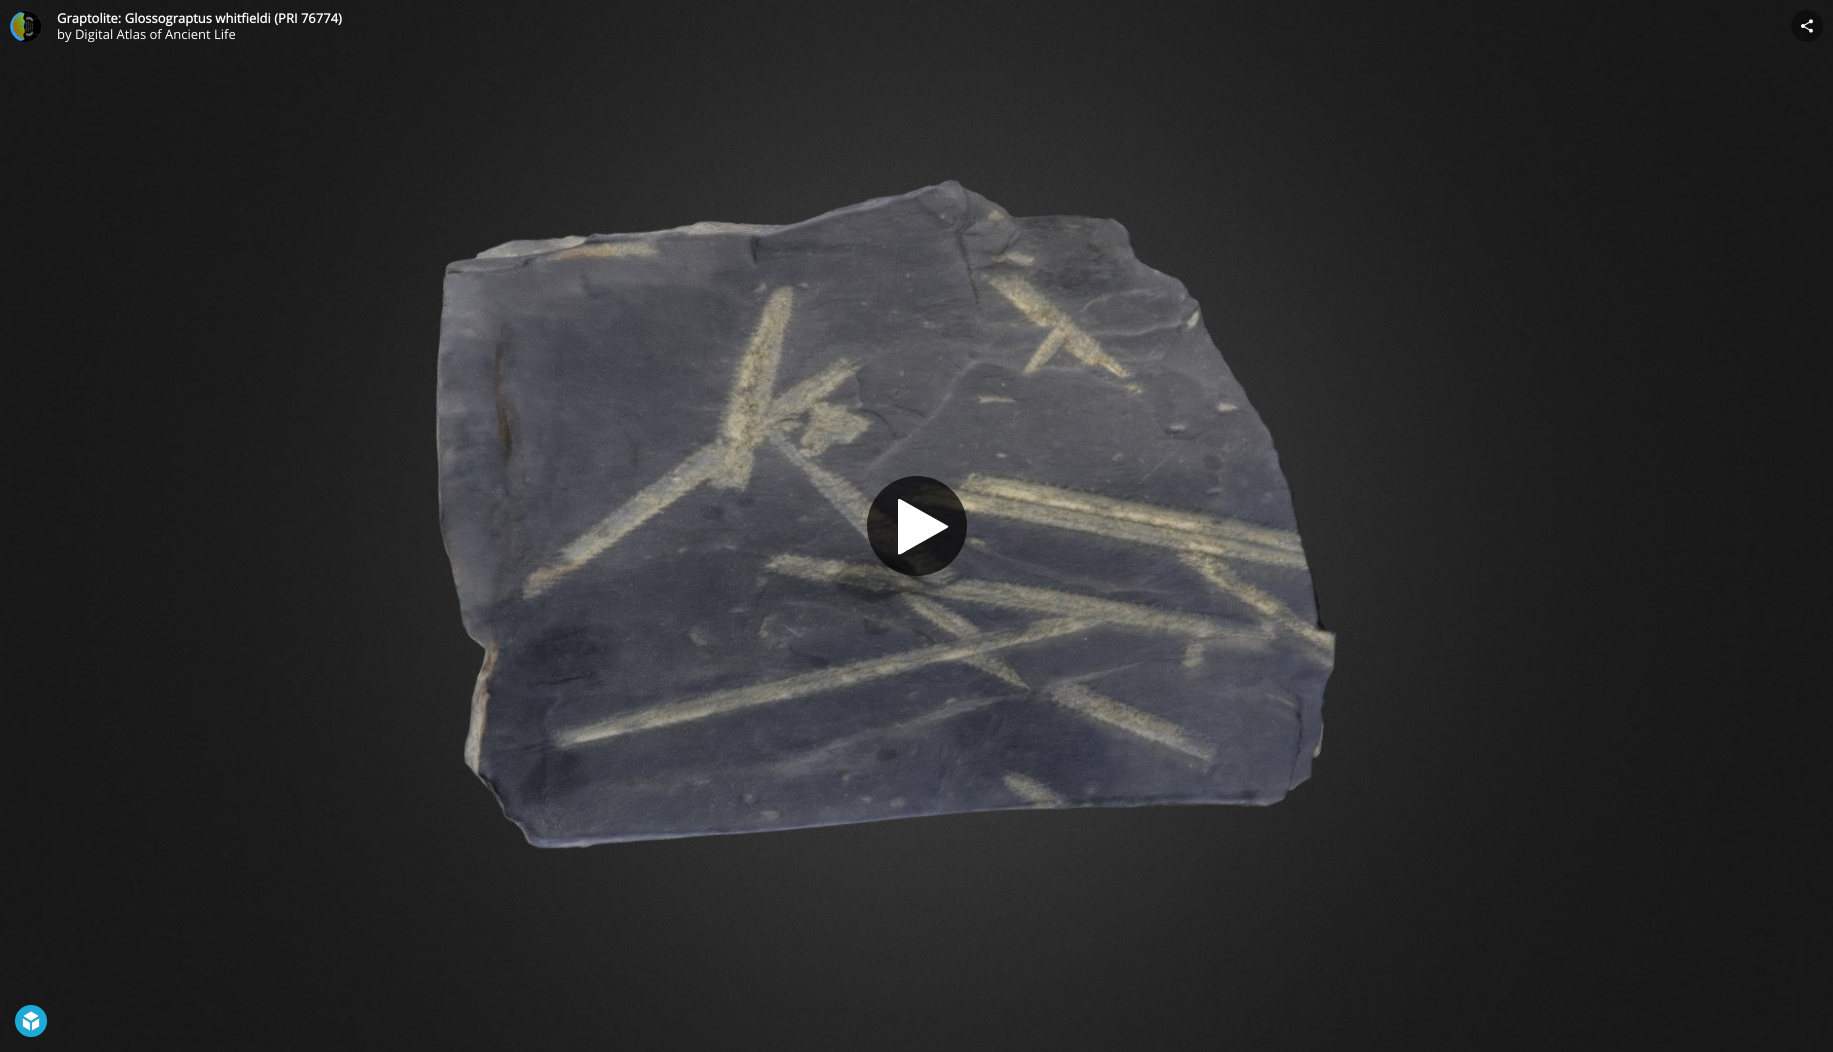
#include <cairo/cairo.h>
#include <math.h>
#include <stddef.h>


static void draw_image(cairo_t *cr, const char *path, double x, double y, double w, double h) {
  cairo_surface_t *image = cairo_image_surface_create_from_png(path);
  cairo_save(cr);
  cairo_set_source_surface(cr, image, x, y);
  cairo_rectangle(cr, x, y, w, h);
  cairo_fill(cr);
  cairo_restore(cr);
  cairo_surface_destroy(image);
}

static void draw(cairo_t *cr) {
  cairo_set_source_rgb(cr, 1, 1, 1);
  cairo_paint(cr);
  draw_image(cr, "images/1.png", 0, 0, 1833, 1052);
  cairo_set_source_rgba(cr, 0, 0, 0, 0.7);
  cairo_arc(cr, 917, 526, 50, 0, 2 * M_PI);
  cairo_fill(cr);
  cairo_set_source_rgb(cr, 1, 1, 1);
  cairo_new_path(cr);
  cairo_move_to(cr, 947, 528);
  cairo_line_to(cr, 908, 550);
  cairo_curve_to(cr, 907, 550, 900, 556, 898, 554);
  cairo_line_to(cr, 898, 500);
  cairo_curve_to(cr, 898, 499, 899, 499, 900, 499);
  cairo_line_to(cr, 948, 526);
  cairo_curve_to(cr, 949, 527, 948, 527, 947, 528);
  cairo_close_path(cr);
  cairo_fill(cr);
  draw_image(cr, "images/2.png", 15, 1005, 32, 32);
  draw_image(cr, "images/3.png", 10, 10, 32, 32);
  cairo_set_source_rgba(cr, 0, 0, 0, 0.4);
  cairo_arc(cr, 1807, 26, 16, 0, 2 * M_PI);
  cairo_fill(cr);
  draw_image(cr, "images/4.png", 1801, 19, 12, 14);
  cairo_select_font_face(cr, "Open Sans", CAIRO_FONT_SLANT_NORMAL, CAIRO_FONT_WEIGHT_BOLD);
  cairo_set_font_size(cr, 13);
  cairo_set_source_rgb(cr, 1, 1, 1);
  cairo_move_to(cr, 57, 23);
  cairo_show_text(cr, "Graptolite: Glossograptus whitfieldi (PRI 76774)");
  cairo_select_font_face(cr, "Open Sans", CAIRO_FONT_SLANT_NORMAL, CAIRO_FONT_WEIGHT_NORMAL);
  cairo_move_to(cr, 57, 39);
  cairo_show_text(cr, "by Digital Atlas of Ancient Life");
}

int main(void) {
  cairo_surface_t *surface = cairo_image_surface_create(CAIRO_FORMAT_RGB24, 1833, 1052);
  cairo_t *cr = cairo_create(surface);
  cairo_font_options_t *options = cairo_font_options_create();
  cairo_font_options_set_hint_metrics(options, CAIRO_HINT_METRICS_OFF);
  cairo_font_options_set_hint_style(options, CAIRO_HINT_STYLE_NONE);
  cairo_set_font_options(cr, options);
  cairo_set_miter_limit(cr, 4);
  draw(cr);
  cairo_surface_write_to_png(surface, "out.png");
  cairo_font_options_destroy(options);
  cairo_destroy(cr);
  cairo_surface_destroy(surface);
  return 0;
}
